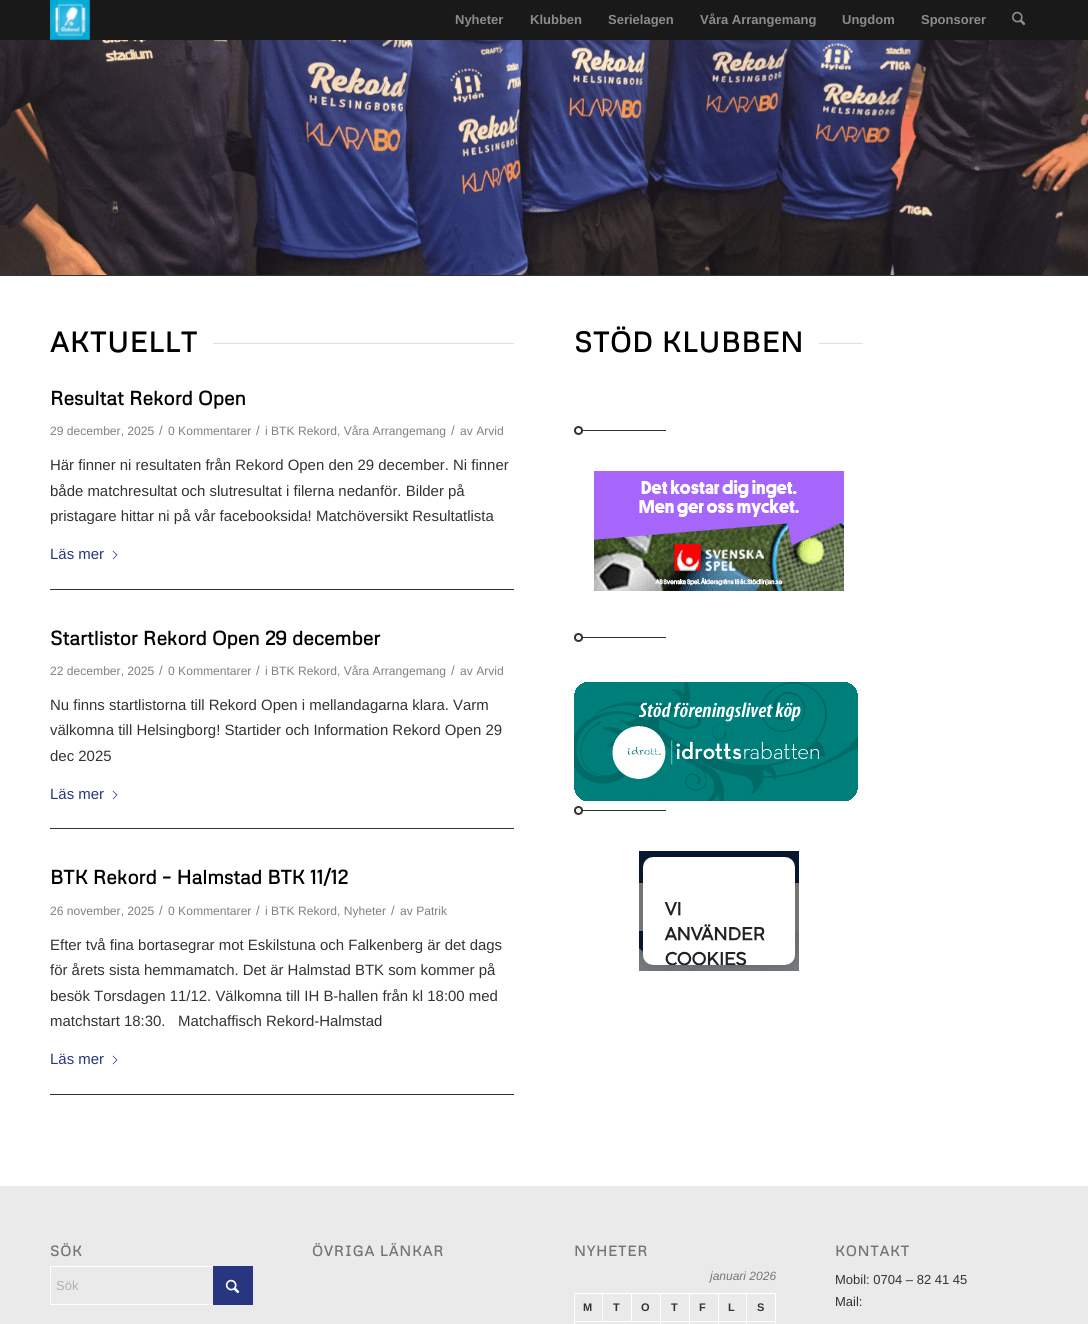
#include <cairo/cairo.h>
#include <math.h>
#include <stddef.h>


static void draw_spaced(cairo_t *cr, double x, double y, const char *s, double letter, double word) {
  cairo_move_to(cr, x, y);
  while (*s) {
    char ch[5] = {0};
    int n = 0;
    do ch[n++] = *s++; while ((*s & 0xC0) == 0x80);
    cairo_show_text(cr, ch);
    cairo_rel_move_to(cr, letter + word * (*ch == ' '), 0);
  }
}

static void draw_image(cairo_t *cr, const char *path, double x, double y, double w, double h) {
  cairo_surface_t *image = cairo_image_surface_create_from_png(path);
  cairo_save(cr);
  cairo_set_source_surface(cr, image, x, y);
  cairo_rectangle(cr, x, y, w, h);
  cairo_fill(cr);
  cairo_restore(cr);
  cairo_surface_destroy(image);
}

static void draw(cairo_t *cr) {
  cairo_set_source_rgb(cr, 1, 1, 1);
  cairo_paint(cr);
  cairo_set_source_rgb(cr, 25 / 255.0, 25 / 255.0, 25 / 255.0);
  cairo_rectangle(cr, 0, 0, 1088, 40);
  cairo_fill(cr);
  draw_image(cr, "images/1.png", 50, 0, 40, 40);
  draw_image(cr, "images/2.png", 1012, 11, 13, 15);
  draw_image(cr, "images/3.png", 0, 40, 1088, 235);
  cairo_set_source_rgb(cr, 51 / 255.0, 51 / 255.0, 51 / 255.0);
  cairo_rectangle(cr, 0, 275, 1088, 1);
  cairo_fill(cr);
  cairo_set_source_rgb(cr, 224 / 255.0, 224 / 255.0, 224 / 255.0);
  cairo_rectangle(cr, 213, 343, 301, 1);
  cairo_fill(cr);
  draw_image(cr, "images/4.png", 112, 550, 6, 10);
  cairo_set_source_rgb(cr, 51 / 255.0, 51 / 255.0, 51 / 255.0);
  cairo_rectangle(cr, 50, 589, 464, 1);
  cairo_fill(cr);
  draw_image(cr, "images/4.png", 112, 790, 6, 10);
  cairo_rectangle(cr, 50, 828, 464, 1);
  cairo_fill(cr);
  draw_image(cr, "images/4.png", 112, 1055, 6, 10);
  cairo_rectangle(cr, 50, 1094, 464, 1);
  cairo_fill(cr);
  cairo_set_source_rgb(cr, 224 / 255.0, 224 / 255.0, 224 / 255.0);
  cairo_rectangle(cr, 819, 343, 44, 1);
  cairo_fill(cr);
  cairo_set_source_rgb(cr, 51 / 255.0, 51 / 255.0, 51 / 255.0);
  cairo_rectangle(cr, 574, 430, 92, 1);
  cairo_fill(cr);
  cairo_set_source_rgb(cr, 1, 1, 1);
  cairo_arc(cr, 578.5, 430.5, 3.5, 0, 2 * M_PI);
  cairo_fill_preserve(cr);
  cairo_set_source_rgb(cr, 51 / 255.0, 51 / 255.0, 51 / 255.0);
  cairo_stroke(cr);
  draw_image(cr, "images/5.png", 594, 471, 250, 120);
  cairo_rectangle(cr, 574, 637, 92, 1);
  cairo_fill(cr);
  cairo_set_source_rgb(cr, 1, 1, 1);
  cairo_arc(cr, 578.5, 637.5, 3.5, 0, 2 * M_PI);
  cairo_fill_preserve(cr);
  cairo_set_source_rgb(cr, 51 / 255.0, 51 / 255.0, 51 / 255.0);
  cairo_stroke(cr);
  draw_image(cr, "images/6.png", 574, 682, 284, 119);
  cairo_rectangle(cr, 574, 810, 92, 1);
  cairo_fill(cr);
  cairo_set_source_rgb(cr, 1, 1, 1);
  cairo_arc(cr, 578.5, 810.5, 3.5, 0, 2 * M_PI);
  cairo_fill_preserve(cr);
  cairo_set_source_rgb(cr, 51 / 255.0, 51 / 255.0, 51 / 255.0);
  cairo_stroke(cr);
  draw_image(cr, "images/7.png", 639, 851, 160, 120);
  cairo_set_source_rgb(cr, 234 / 255.0, 234 / 255.0, 234 / 255.0);
  cairo_rectangle(cr, 0, 1186, 1088, 138);
  cairo_fill(cr);
  cairo_rectangle(cr, 50.5, 1266.5, 202, 38);
  cairo_set_source_rgb(cr, 1, 1, 1);
  cairo_set_line_width(cr, 1);
  cairo_stroke(cr);
  cairo_set_source_rgb(cr, 40 / 255.0, 53 / 255.0, 128 / 255.0);
  cairo_rectangle(cr, 213, 1266, 40, 39);
  cairo_fill(cr);
  draw_image(cr, "images/8.png", 225, 1279, 15, 15);
  cairo_set_source_rgb(cr, 1, 1, 1);
  cairo_rectangle(cr, 574, 1293, 202, 1);
  cairo_fill(cr);
  cairo_rectangle(cr, 574, 1321, 202, 1);
  cairo_fill(cr);
  cairo_rectangle(cr, 602, 1293, 1, 29);
  cairo_fill(cr);
  cairo_rectangle(cr, 574, 1321, 1, 3);
  cairo_fill(cr);
  cairo_rectangle(cr, 574, 1293, 1, 29);
  cairo_fill(cr);
  cairo_rectangle(cr, 631, 1293, 1, 29);
  cairo_fill(cr);
  cairo_rectangle(cr, 660, 1321, 1, 3);
  cairo_fill(cr);
  cairo_rectangle(cr, 660, 1293, 1, 29);
  cairo_fill(cr);
  cairo_rectangle(cr, 689, 1321, 1, 3);
  cairo_fill(cr);
  cairo_rectangle(cr, 689, 1293, 1, 29);
  cairo_fill(cr);
  cairo_rectangle(cr, 718, 1321, 1, 3);
  cairo_fill(cr);
  cairo_rectangle(cr, 718, 1293, 1, 29);
  cairo_fill(cr);
  cairo_rectangle(cr, 746, 1321, 1, 3);
  cairo_fill(cr);
  cairo_rectangle(cr, 746, 1293, 1, 29);
  cairo_fill(cr);
  cairo_rectangle(cr, 775, 1321, 1, 3);
  cairo_fill(cr);
  cairo_rectangle(cr, 775, 1293, 1, 29);
  cairo_fill(cr);
  cairo_select_font_face(cr, "Liberation Sans", CAIRO_FONT_SLANT_NORMAL, CAIRO_FONT_WEIGHT_BOLD);
  cairo_set_font_size(cr, 13);
  cairo_set_source_rgb(cr, 140 / 255.0, 140 / 255.0, 140 / 255.0);
  cairo_move_to(cr, 455, 24);
  cairo_show_text(cr, "Nyheter");
  cairo_move_to(cr, 530, 24);
  cairo_show_text(cr, "Klubben");
  cairo_move_to(cr, 608, 24);
  cairo_show_text(cr, "Serielagen");
  cairo_move_to(cr, 700, 24);
  cairo_show_text(cr, "Våra Arrangemang");
  cairo_move_to(cr, 842, 24);
  cairo_show_text(cr, "Ungdom");
  cairo_move_to(cr, 921, 24);
  cairo_show_text(cr, "Sponsorer");
  cairo_select_font_face(cr, "Metrophobic", CAIRO_FONT_SLANT_NORMAL, CAIRO_FONT_WEIGHT_BOLD);
  cairo_set_font_size(cr, 28);
  cairo_set_source_rgb(cr, 0, 0, 0);
  draw_spaced(cr, 50, 352, "AKTUELLT", 1, 0);
  cairo_set_font_size(cr, 19.4);
  cairo_move_to(cr, 50, 405);
  cairo_show_text(cr, "Resultat Rekord Open");
  cairo_select_font_face(cr, "Liberation Sans", CAIRO_FONT_SLANT_NORMAL, CAIRO_FONT_WEIGHT_NORMAL);
  cairo_set_font_size(cr, 12.1);
  cairo_set_source_rgb(cr, 128 / 255.0, 128 / 255.0, 128 / 255.0);
  cairo_move_to(cr, 50, 435);
  cairo_show_text(cr, "29 december, 2025");
  cairo_set_font_size(cr, 13);
  cairo_move_to(cr, 159, 435);
  cairo_show_text(cr, "/");
  cairo_set_font_size(cr, 12.1);
  cairo_move_to(cr, 168, 435);
  cairo_show_text(cr, "0 Kommentarer");
  cairo_set_font_size(cr, 13);
  cairo_move_to(cr, 256, 435);
  cairo_show_text(cr, "/");
  cairo_set_font_size(cr, 12.1);
  cairo_move_to(cr, 265, 435);
  cairo_show_text(cr, "i BTK Rekord, Våra Arrangemang");
  cairo_set_font_size(cr, 13);
  cairo_move_to(cr, 451, 435);
  cairo_show_text(cr, "/");
  cairo_set_font_size(cr, 12.1);
  cairo_move_to(cr, 460, 435);
  cairo_show_text(cr, "av Arvid");
  cairo_set_font_size(cr, 14.95);
  cairo_set_source_rgb(cr, 51 / 255.0, 51 / 255.0, 51 / 255.0);
  cairo_move_to(cr, 50, 470);
  cairo_show_text(cr, "Här finner ni resultaten från Rekord Open den 29 december. Ni finner");
  cairo_move_to(cr, 50, 496);
  cairo_show_text(cr, "både matchresultat och slutresultat i filerna nedanför. Bilder på");
  cairo_move_to(cr, 50, 521);
  cairo_show_text(cr, "pristagare hittar ni på vår facebooksida! Matchöversikt Resultatlista");
  cairo_set_source_rgb(cr, 40 / 255.0, 53 / 255.0, 128 / 255.0);
  cairo_move_to(cr, 50, 559);
  cairo_show_text(cr, "Läs mer");
  cairo_select_font_face(cr, "Metrophobic", CAIRO_FONT_SLANT_NORMAL, CAIRO_FONT_WEIGHT_BOLD);
  cairo_set_font_size(cr, 19.4);
  cairo_set_source_rgb(cr, 0, 0, 0);
  cairo_move_to(cr, 50, 645);
  cairo_show_text(cr, "Startlistor Rekord Open 29 december");
  cairo_select_font_face(cr, "Liberation Sans", CAIRO_FONT_SLANT_NORMAL, CAIRO_FONT_WEIGHT_NORMAL);
  cairo_set_font_size(cr, 12.1);
  cairo_set_source_rgb(cr, 128 / 255.0, 128 / 255.0, 128 / 255.0);
  cairo_move_to(cr, 50, 675);
  cairo_show_text(cr, "22 december, 2025");
  cairo_set_font_size(cr, 13);
  cairo_move_to(cr, 159, 675);
  cairo_show_text(cr, "/");
  cairo_set_font_size(cr, 12.1);
  cairo_move_to(cr, 168, 675);
  cairo_show_text(cr, "0 Kommentarer");
  cairo_set_font_size(cr, 13);
  cairo_move_to(cr, 256, 675);
  cairo_show_text(cr, "/");
  cairo_set_font_size(cr, 12.1);
  cairo_move_to(cr, 265, 675);
  cairo_show_text(cr, "i BTK Rekord, Våra Arrangemang");
  cairo_set_font_size(cr, 13);
  cairo_move_to(cr, 451, 675);
  cairo_show_text(cr, "/");
  cairo_set_font_size(cr, 12.1);
  cairo_move_to(cr, 460, 675);
  cairo_show_text(cr, "av Arvid");
  cairo_set_font_size(cr, 14.95);
  cairo_set_source_rgb(cr, 51 / 255.0, 51 / 255.0, 51 / 255.0);
  cairo_move_to(cr, 50, 710);
  cairo_show_text(cr, "Nu finns startlistorna till Rekord Open i mellandagarna klara. Varm");
  cairo_move_to(cr, 50, 735);
  cairo_show_text(cr, "välkomna till Helsingborg! Startider och Information Rekord Open 29");
  cairo_move_to(cr, 50, 761);
  cairo_show_text(cr, "dec 2025");
  cairo_set_source_rgb(cr, 40 / 255.0, 53 / 255.0, 128 / 255.0);
  cairo_move_to(cr, 50, 799);
  cairo_show_text(cr, "Läs mer");
  cairo_select_font_face(cr, "Metrophobic", CAIRO_FONT_SLANT_NORMAL, CAIRO_FONT_WEIGHT_BOLD);
  cairo_set_font_size(cr, 19.4);
  cairo_set_source_rgb(cr, 0, 0, 0);
  cairo_move_to(cr, 50, 884);
  cairo_show_text(cr, "BTK Rekord – Halmstad BTK 11/12");
  cairo_select_font_face(cr, "Liberation Sans", CAIRO_FONT_SLANT_NORMAL, CAIRO_FONT_WEIGHT_NORMAL);
  cairo_set_font_size(cr, 12.1);
  cairo_set_source_rgb(cr, 128 / 255.0, 128 / 255.0, 128 / 255.0);
  cairo_move_to(cr, 50, 915);
  cairo_show_text(cr, "26 november, 2025");
  cairo_set_font_size(cr, 13);
  cairo_move_to(cr, 159, 915);
  cairo_show_text(cr, "/");
  cairo_set_font_size(cr, 12.1);
  cairo_move_to(cr, 168, 915);
  cairo_show_text(cr, "0 Kommentarer");
  cairo_set_font_size(cr, 13);
  cairo_move_to(cr, 256, 915);
  cairo_show_text(cr, "/");
  cairo_set_font_size(cr, 12.1);
  cairo_move_to(cr, 265, 915);
  cairo_show_text(cr, "i BTK Rekord, Nyheter");
  cairo_set_font_size(cr, 13);
  cairo_move_to(cr, 391, 915);
  cairo_show_text(cr, "/");
  cairo_set_font_size(cr, 12.1);
  cairo_move_to(cr, 400, 915);
  cairo_show_text(cr, "av Patrik");
  cairo_set_font_size(cr, 14.95);
  cairo_set_source_rgb(cr, 51 / 255.0, 51 / 255.0, 51 / 255.0);
  cairo_move_to(cr, 50, 950);
  cairo_show_text(cr, "Efter två fina bortasegrar mot Eskilstuna och Falkenberg är det dags");
  cairo_move_to(cr, 50, 975);
  cairo_show_text(cr, "för årets sista hemmamatch. Det är Halmstad BTK som kommer på");
  cairo_move_to(cr, 50, 1001);
  cairo_show_text(cr, "besök Torsdagen 11/12. Välkomna till IH B-hallen från kl 18:00 med");
  cairo_move_to(cr, 50, 1026);
  cairo_show_text(cr, "matchstart 18:30.   Matchaffisch Rekord-Halmstad");
  cairo_set_source_rgb(cr, 40 / 255.0, 53 / 255.0, 128 / 255.0);
  cairo_move_to(cr, 50, 1064);
  cairo_show_text(cr, "Läs mer");
  cairo_select_font_face(cr, "Metrophobic", CAIRO_FONT_SLANT_NORMAL, CAIRO_FONT_WEIGHT_BOLD);
  cairo_set_font_size(cr, 28);
  cairo_set_source_rgb(cr, 0, 0, 0);
  draw_spaced(cr, 574, 352, "STÖD KLUBBEN", 1, 0);
  cairo_set_font_size(cr, 14.25);
  cairo_set_source_rgb(cr, 117 / 255.0, 117 / 255.0, 117 / 255.0);
  draw_spaced(cr, 50, 1256, "SÖK", 1, 0);
  cairo_select_font_face(cr, "Liberation Sans", CAIRO_FONT_SLANT_NORMAL, CAIRO_FONT_WEIGHT_NORMAL);
  cairo_set_font_size(cr, 13);
  cairo_set_source_rgb(cr, 176 / 255.0, 176 / 255.0, 176 / 255.0);
  cairo_move_to(cr, 56, 1290);
  cairo_show_text(cr, "Sök");
  cairo_select_font_face(cr, "Metrophobic", CAIRO_FONT_SLANT_NORMAL, CAIRO_FONT_WEIGHT_BOLD);
  cairo_set_font_size(cr, 14.25);
  cairo_set_source_rgb(cr, 117 / 255.0, 117 / 255.0, 117 / 255.0);
  draw_spaced(cr, 312, 1256, "ÖVRIGA LÄNKAR", 1, 0);
  draw_spaced(cr, 574, 1256, "NYHETER", 1, 0);
  cairo_select_font_face(cr, "Liberation Sans", CAIRO_FONT_SLANT_ITALIC, CAIRO_FONT_WEIGHT_NORMAL);
  cairo_set_font_size(cr, 12);
  cairo_move_to(cr, 710, 1280);
  cairo_show_text(cr, "januari 2026");
  cairo_select_font_face(cr, "Liberation Sans", CAIRO_FONT_SLANT_NORMAL, CAIRO_FONT_WEIGHT_BOLD);
  cairo_set_font_size(cr, 11);
  cairo_set_source_rgb(cr, 51 / 255.0, 51 / 255.0, 51 / 255.0);
  draw_spaced(cr, 583, 1311, "M", 2, 0);
  draw_spaced(cr, 613, 1311, "T", 2, 0);
  draw_spaced(cr, 641, 1311, "O", 2, 0);
  draw_spaced(cr, 671, 1311, "T", 2, 0);
  draw_spaced(cr, 699, 1311, "F", 2, 0);
  draw_spaced(cr, 728, 1311, "L", 2, 0);
  draw_spaced(cr, 757, 1311, "S", 2, 0);
  cairo_select_font_face(cr, "Metrophobic", CAIRO_FONT_SLANT_NORMAL, CAIRO_FONT_WEIGHT_BOLD);
  cairo_set_font_size(cr, 14.25);
  cairo_set_source_rgb(cr, 117 / 255.0, 117 / 255.0, 117 / 255.0);
  draw_spaced(cr, 835, 1256, "KONTAKT", 1, 0);
  cairo_select_font_face(cr, "Liberation Sans", CAIRO_FONT_SLANT_NORMAL, CAIRO_FONT_WEIGHT_NORMAL);
  cairo_set_font_size(cr, 13);
  cairo_set_source_rgb(cr, 51 / 255.0, 51 / 255.0, 51 / 255.0);
  cairo_move_to(cr, 835, 1284);
  cairo_show_text(cr, "Mobil: 0704 – 82 41 45");
  cairo_move_to(cr, 835, 1306);
  cairo_show_text(cr, "Mail:");
}

int main(void) {
  cairo_surface_t *surface = cairo_image_surface_create(CAIRO_FORMAT_RGB24, 1088, 1324);
  cairo_t *cr = cairo_create(surface);
  cairo_font_options_t *options = cairo_font_options_create();
  cairo_font_options_set_hint_metrics(options, CAIRO_HINT_METRICS_OFF);
  cairo_font_options_set_hint_style(options, CAIRO_HINT_STYLE_NONE);
  cairo_set_font_options(cr, options);
  cairo_set_miter_limit(cr, 4);
  draw(cr);
  cairo_surface_write_to_png(surface, "out.png");
  cairo_font_options_destroy(options);
  cairo_destroy(cr);
  cairo_surface_destroy(surface);
  return 0;
}
